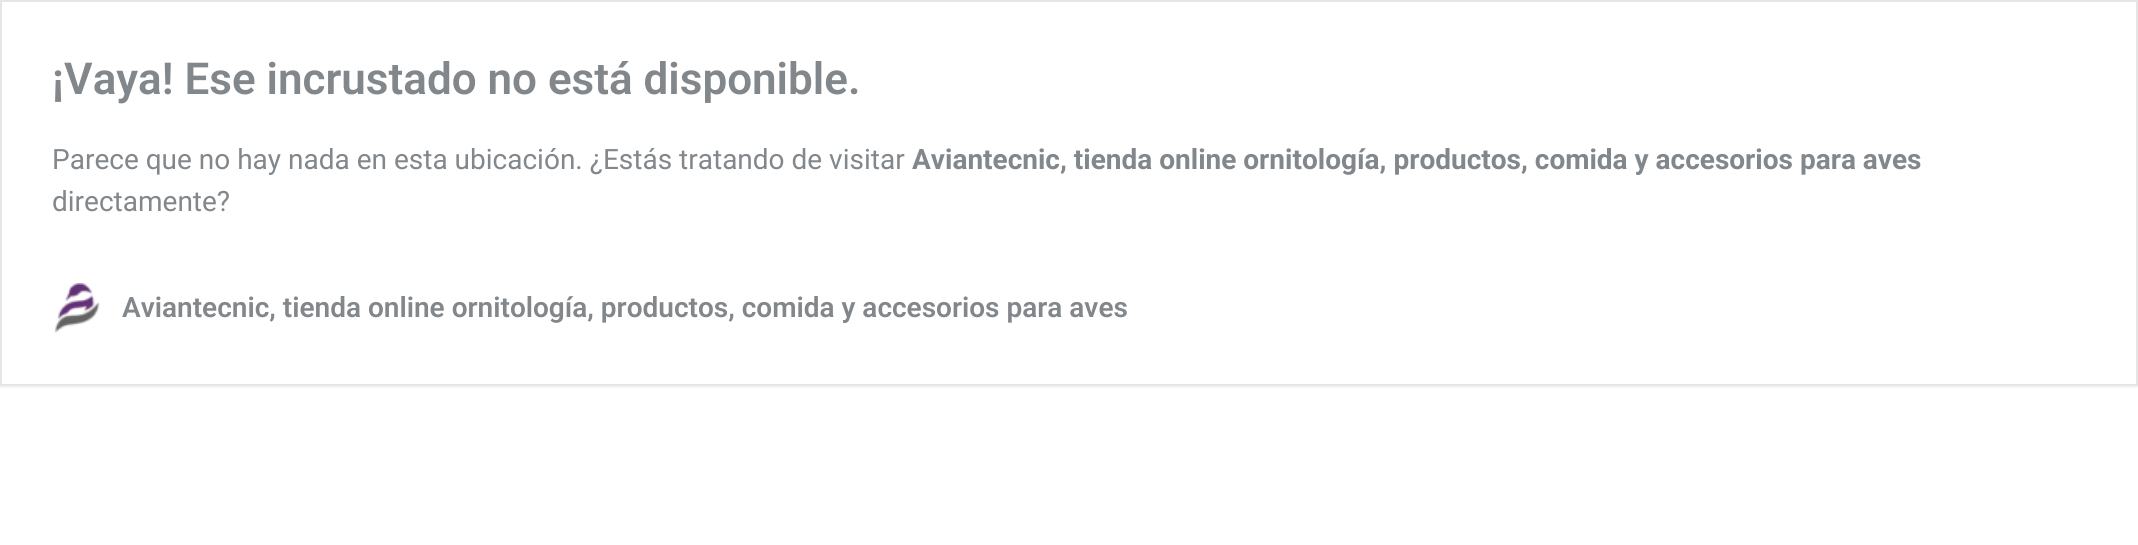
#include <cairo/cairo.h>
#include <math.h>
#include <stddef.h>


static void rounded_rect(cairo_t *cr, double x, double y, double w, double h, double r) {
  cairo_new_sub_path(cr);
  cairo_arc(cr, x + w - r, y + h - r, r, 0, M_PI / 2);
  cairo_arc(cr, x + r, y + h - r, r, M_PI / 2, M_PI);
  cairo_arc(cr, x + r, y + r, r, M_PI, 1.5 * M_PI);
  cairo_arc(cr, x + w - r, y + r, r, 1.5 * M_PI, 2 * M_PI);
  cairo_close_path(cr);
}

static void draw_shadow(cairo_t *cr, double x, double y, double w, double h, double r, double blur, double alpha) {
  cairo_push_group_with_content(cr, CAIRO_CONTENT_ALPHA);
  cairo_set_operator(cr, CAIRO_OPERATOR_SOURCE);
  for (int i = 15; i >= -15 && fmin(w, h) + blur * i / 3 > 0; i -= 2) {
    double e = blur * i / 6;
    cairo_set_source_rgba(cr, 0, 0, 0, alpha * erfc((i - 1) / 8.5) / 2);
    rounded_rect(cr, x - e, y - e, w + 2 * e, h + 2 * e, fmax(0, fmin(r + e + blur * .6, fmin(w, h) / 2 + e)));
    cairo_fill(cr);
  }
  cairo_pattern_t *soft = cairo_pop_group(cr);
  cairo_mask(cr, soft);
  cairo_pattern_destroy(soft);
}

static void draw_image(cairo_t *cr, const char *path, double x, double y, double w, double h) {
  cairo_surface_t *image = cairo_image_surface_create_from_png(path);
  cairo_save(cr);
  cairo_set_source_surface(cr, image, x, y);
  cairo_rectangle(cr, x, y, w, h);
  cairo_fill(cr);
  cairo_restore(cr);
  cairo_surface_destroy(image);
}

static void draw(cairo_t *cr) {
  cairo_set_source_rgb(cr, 1, 1, 1);
  cairo_paint(cr);
  cairo_save(cr);
  cairo_rectangle(cr, 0, 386, 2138, 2);
  cairo_clip(cr);
  cairo_set_source_rgb(cr, 0, 0, 0);
  draw_shadow(cr, 0, 2, 2138, 386, 0, 1, 0.05);
  cairo_restore(cr);
  cairo_rectangle(cr, 1, 1, 2136, 384);
  cairo_set_source_rgb(cr, 229 / 255.0, 229 / 255.0, 229 / 255.0);
  cairo_stroke(cr);
  draw_image(cr, "images/1.png", 54, 283, 46, 50);
  cairo_select_font_face(cr, "Roboto SemiBold", CAIRO_FONT_SLANT_NORMAL, CAIRO_FONT_WEIGHT_NORMAL);
  cairo_set_font_size(cr, 44);
  cairo_set_source_rgb(cr, 130 / 255.0, 135 / 255.0, 140 / 255.0);
  cairo_move_to(cr, 52, 94);
  cairo_show_text(cr, "¡Vaya! Ese incrustado no está disponible.");
  cairo_select_font_face(cr, "Roboto", CAIRO_FONT_SLANT_NORMAL, CAIRO_FONT_WEIGHT_NORMAL);
  cairo_set_font_size(cr, 28);
  cairo_move_to(cr, 52, 169);
  cairo_show_text(cr, "Parece que no hay nada en esta ubicación. ¿Estás tratando de visitar");
  cairo_select_font_face(cr, "Roboto", CAIRO_FONT_SLANT_NORMAL, CAIRO_FONT_WEIGHT_BOLD);
  cairo_move_to(cr, 912, 169);
  cairo_show_text(cr, "Aviantecnic, tienda online ornitología, productos, comida y accesorios para aves");
  cairo_select_font_face(cr, "Roboto", CAIRO_FONT_SLANT_NORMAL, CAIRO_FONT_WEIGHT_NORMAL);
  cairo_move_to(cr, 52, 211);
  cairo_show_text(cr, "directamente?");
  cairo_select_font_face(cr, "Roboto SemiBold", CAIRO_FONT_SLANT_NORMAL, CAIRO_FONT_WEIGHT_NORMAL);
  cairo_move_to(cr, 122, 317);
  cairo_show_text(cr, "Aviantecnic, tienda online ornitología, productos, comida y accesorios para aves");
}

int main(void) {
  cairo_surface_t *surface = cairo_image_surface_create(CAIRO_FORMAT_RGB24, 2138, 545);
  cairo_t *cr = cairo_create(surface);
  cairo_font_options_t *options = cairo_font_options_create();
  cairo_font_options_set_hint_metrics(options, CAIRO_HINT_METRICS_OFF);
  cairo_font_options_set_hint_style(options, CAIRO_HINT_STYLE_NONE);
  cairo_set_font_options(cr, options);
  cairo_set_miter_limit(cr, 4);
  draw(cr);
  cairo_surface_write_to_png(surface, "out.png");
  cairo_font_options_destroy(options);
  cairo_destroy(cr);
  cairo_surface_destroy(surface);
  return 0;
}
